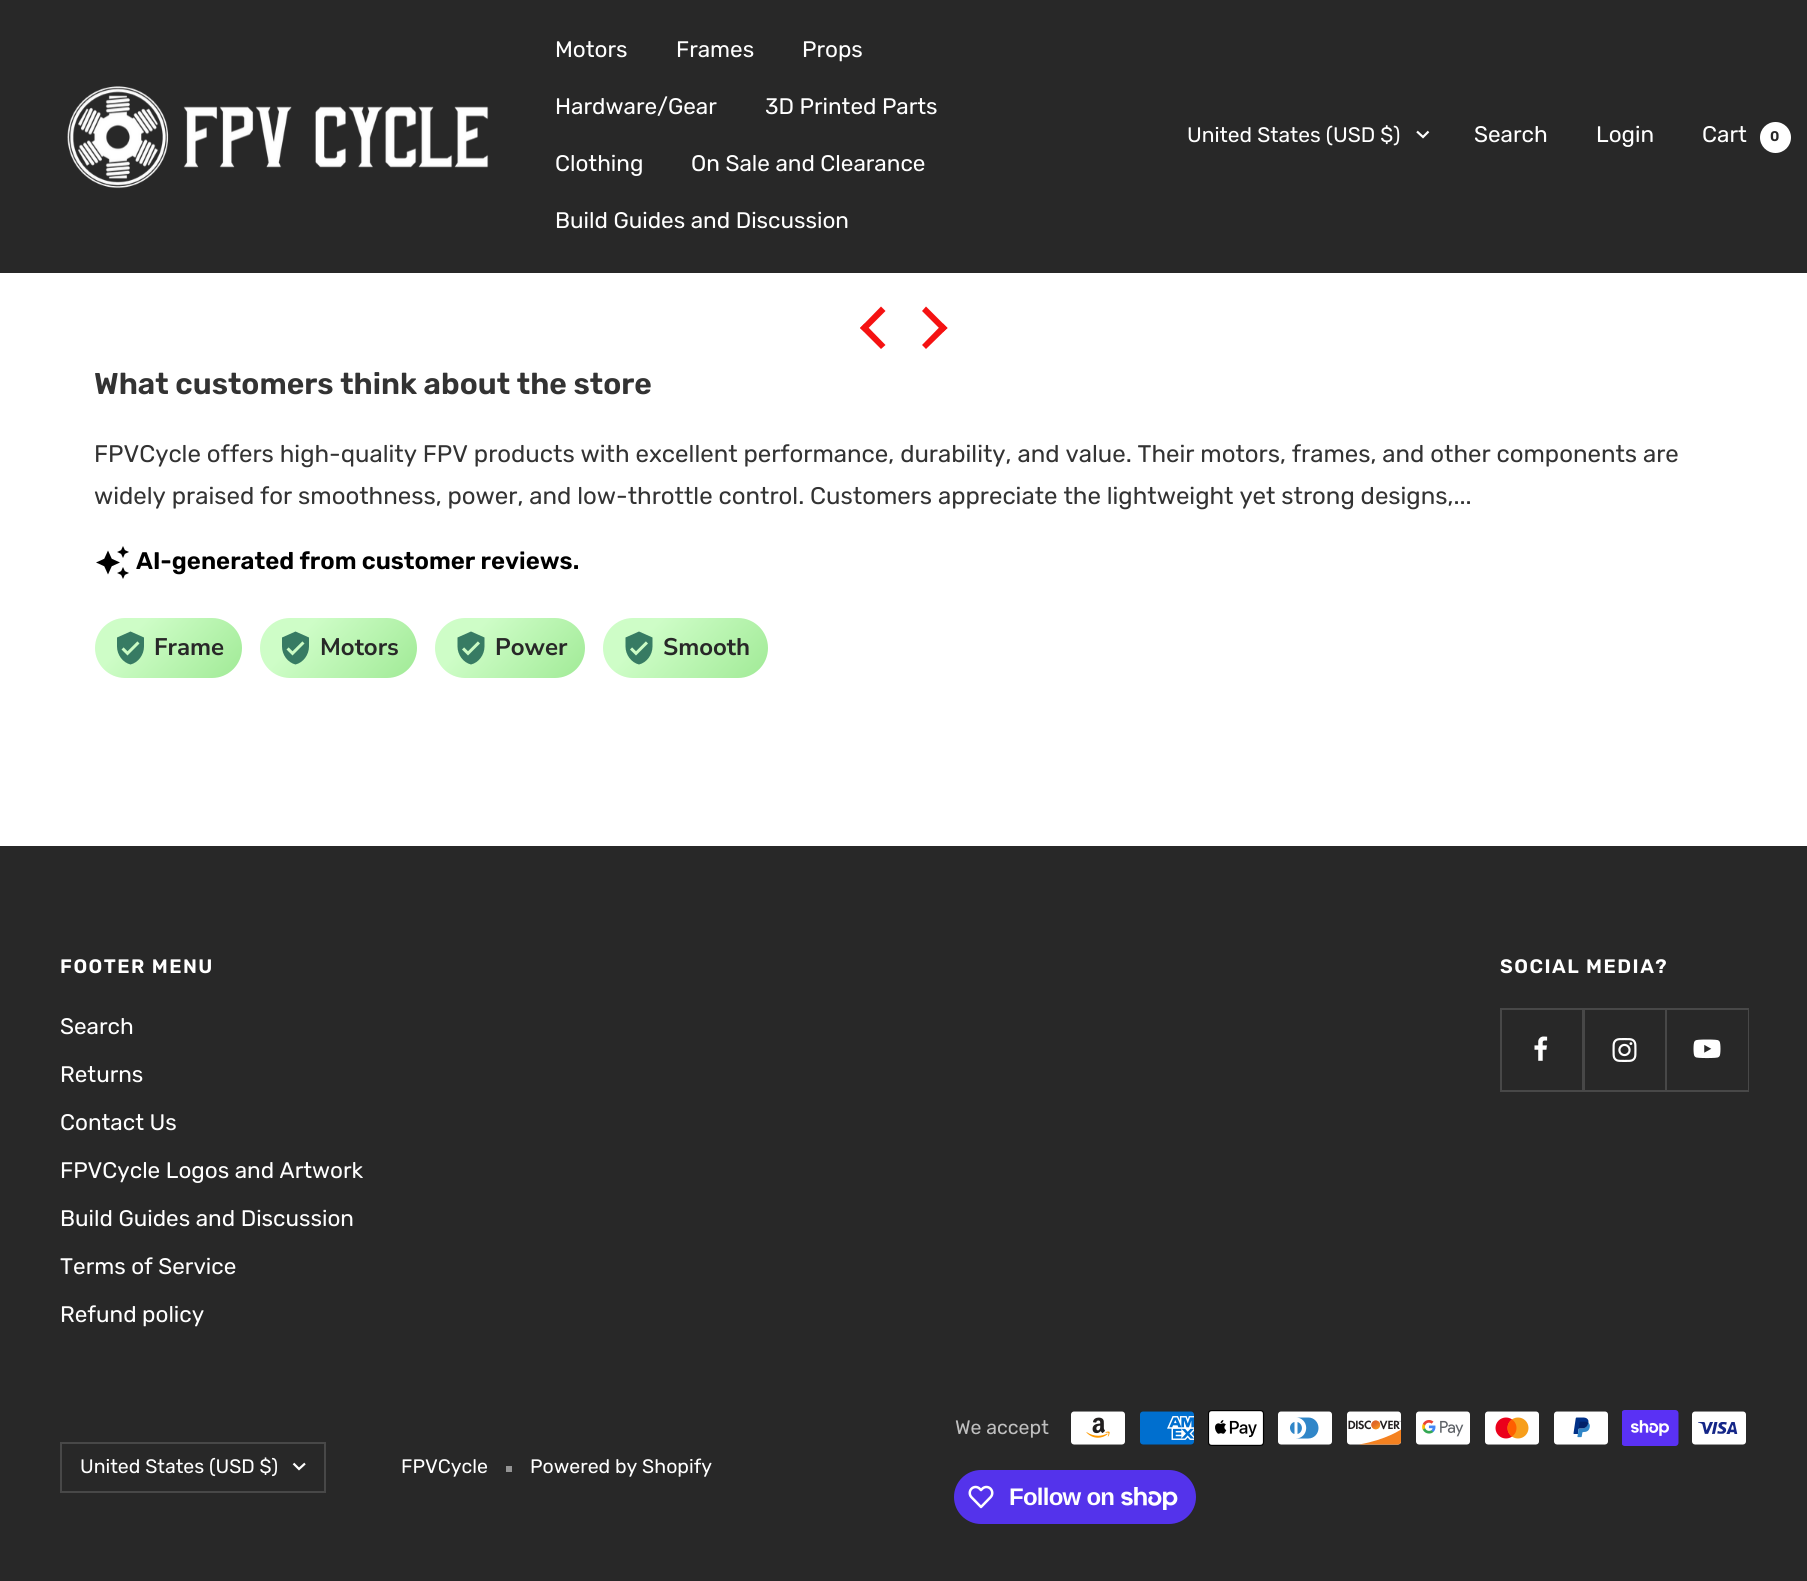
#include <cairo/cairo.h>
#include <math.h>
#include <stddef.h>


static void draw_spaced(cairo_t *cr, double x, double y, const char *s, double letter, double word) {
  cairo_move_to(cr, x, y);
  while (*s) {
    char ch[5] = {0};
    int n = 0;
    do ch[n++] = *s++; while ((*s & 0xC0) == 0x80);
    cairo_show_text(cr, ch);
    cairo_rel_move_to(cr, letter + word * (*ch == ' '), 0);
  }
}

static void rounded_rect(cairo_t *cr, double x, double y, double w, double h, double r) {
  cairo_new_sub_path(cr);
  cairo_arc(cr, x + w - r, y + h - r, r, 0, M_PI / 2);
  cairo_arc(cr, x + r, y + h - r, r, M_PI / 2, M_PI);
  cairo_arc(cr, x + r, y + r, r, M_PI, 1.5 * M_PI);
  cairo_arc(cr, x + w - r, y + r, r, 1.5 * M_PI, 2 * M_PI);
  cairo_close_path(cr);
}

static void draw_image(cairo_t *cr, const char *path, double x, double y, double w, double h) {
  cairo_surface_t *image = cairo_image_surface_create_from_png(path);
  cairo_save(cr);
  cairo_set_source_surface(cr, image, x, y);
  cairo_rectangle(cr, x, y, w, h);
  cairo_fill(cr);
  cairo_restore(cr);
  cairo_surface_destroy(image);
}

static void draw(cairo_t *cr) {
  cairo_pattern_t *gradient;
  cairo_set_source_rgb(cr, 1, 1, 1);
  cairo_paint(cr);
  cairo_set_source_rgb(cr, 40 / 255.0, 40 / 255.0, 40 / 255.0);
  cairo_rectangle(cr, 0, 0, 1807, 273);
  cairo_fill(cr);
  draw_image(cr, "images/1.png", 67, 86, 422, 103);
  cairo_new_path(cr);
  cairo_move_to(cr, 1417, 131.5);
  cairo_line_to(cr, 1423, 137);
  cairo_line_to(cr, 1428.5, 131.5);
  cairo_set_source_rgb(cr, 1, 1, 1);
  cairo_set_line_width(cr, 2.2);
  cairo_stroke(cr);
  cairo_arc(cr, 1775.5, 137.5, 15.5, 0, 2 * M_PI);
  cairo_fill(cr);
  cairo_set_source_rgb(cr, 245 / 255.0, 18 / 255.0, 18 / 255.0);
  cairo_new_path(cr);
  cairo_move_to(cr, 860, 328);
  cairo_line_to(cr, 881, 306.5);
  cairo_line_to(cr, 885.5, 311);
  cairo_line_to(cr, 864.5, 332);
  cairo_close_path(cr);
  cairo_fill(cr);
  cairo_new_path(cr);
  cairo_move_to(cr, 860, 328);
  cairo_line_to(cr, 864.5, 323.5);
  cairo_line_to(cr, 885.5, 345);
  cairo_line_to(cr, 881, 349);
  cairo_close_path(cr);
  cairo_fill(cr);
  cairo_new_path(cr);
  cairo_move_to(cr, 922, 311);
  cairo_line_to(cr, 926, 306.5);
  cairo_line_to(cr, 947.5, 328);
  cairo_line_to(cr, 943, 332);
  cairo_close_path(cr);
  cairo_fill(cr);
  cairo_new_path(cr);
  cairo_move_to(cr, 922, 345);
  cairo_line_to(cr, 943, 323.5);
  cairo_line_to(cr, 947.5, 328);
  cairo_line_to(cr, 926, 349);
  cairo_close_path(cr);
  cairo_fill(cr);
  draw_image(cr, "images/2.png", 96, 546, 33, 33);
  gradient = cairo_pattern_create_linear(114, 597, 222, 699);
  cairo_pattern_add_color_stop_rgba(gradient, 0.26, 206 / 255.0, 253 / 255.0, 199 / 255.0, 1);
  cairo_pattern_add_color_stop_rgba(gradient, 0.93, 165 / 255.0, 236 / 255.0, 155 / 255.0, 1);
  cairo_set_source(cr, gradient);
  cairo_pattern_destroy(gradient);
  rounded_rect(cr, 95, 618, 147, 60, 30);
  cairo_fill(cr);
  draw_image(cr, "images/3.png", 117, 631, 27, 34);
  gradient = cairo_pattern_create_linear(282, 595, 395, 701);
  cairo_pattern_add_color_stop_rgba(gradient, 0.26, 206 / 255.0, 253 / 255.0, 199 / 255.0, 1);
  cairo_pattern_add_color_stop_rgba(gradient, 0.93, 165 / 255.0, 236 / 255.0, 155 / 255.0, 1);
  cairo_set_source(cr, gradient);
  cairo_pattern_destroy(gradient);
  rounded_rect(cr, 260, 618, 157, 60, 30);
  cairo_fill(cr);
  draw_image(cr, "images/4.png", 282, 631, 27, 34);
  gradient = cairo_pattern_create_linear(455, 596, 565, 700);
  cairo_pattern_add_color_stop_rgba(gradient, 0.26, 206 / 255.0, 253 / 255.0, 199 / 255.0, 1);
  cairo_pattern_add_color_stop_rgba(gradient, 0.93, 165 / 255.0, 236 / 255.0, 155 / 255.0, 1);
  cairo_set_source(cr, gradient);
  cairo_pattern_destroy(gradient);
  rounded_rect(cr, 435, 618, 150, 60, 30);
  cairo_fill(cr);
  draw_image(cr, "images/5.png", 457, 631, 28, 34);
  gradient = cairo_pattern_create_linear(627, 593, 744, 703);
  cairo_pattern_add_color_stop_rgba(gradient, 0.26, 206 / 255.0, 253 / 255.0, 199 / 255.0, 1);
  cairo_pattern_add_color_stop_rgba(gradient, 0.93, 165 / 255.0, 236 / 255.0, 155 / 255.0, 1);
  cairo_set_source(cr, gradient);
  cairo_pattern_destroy(gradient);
  rounded_rect(cr, 603, 618, 165, 60, 30);
  cairo_fill(cr);
  draw_image(cr, "images/6.png", 625, 631, 28, 34);
  cairo_set_source_rgb(cr, 40 / 255.0, 40 / 255.0, 40 / 255.0);
  cairo_rectangle(cr, 0, 846, 1807, 735);
  cairo_fill(cr);
  cairo_set_source_rgb(cr, 72 / 255.0, 72 / 255.0, 72 / 255.0);
  cairo_new_path(cr);
  cairo_move_to(cr, 1502, 1090);
  cairo_line_to(cr, 1502, 1092);
  cairo_line_to(cr, 1584, 1092);
  cairo_line_to(cr, 1584, 1010);
  cairo_line_to(cr, 1582, 1010);
  cairo_line_to(cr, 1582, 1090);
  cairo_close_path(cr);
  cairo_fill(cr);
  cairo_new_path(cr);
  cairo_move_to(cr, 1500, 1090);
  cairo_line_to(cr, 1500, 1092);
  cairo_line_to(cr, 1583, 1092);
  cairo_line_to(cr, 1583, 1010);
  cairo_line_to(cr, 1582, 1010);
  cairo_line_to(cr, 1582, 1090);
  cairo_close_path(cr);
  cairo_fill(cr);
  cairo_new_path(cr);
  cairo_move_to(cr, 1502, 1090);
  cairo_line_to(cr, 1502, 1091);
  cairo_line_to(cr, 1584, 1091);
  cairo_line_to(cr, 1584, 1008);
  cairo_line_to(cr, 1582, 1008);
  cairo_line_to(cr, 1582, 1090);
  cairo_close_path(cr);
  cairo_fill(cr);
  cairo_rectangle(cr, 1500, 1008, 83, 2);
  cairo_fill(cr);
  cairo_rectangle(cr, 1500, 1008, 2, 83);
  cairo_fill(cr);
  draw_image(cr, "images/7.png", 1534, 1036, 14, 25);
  cairo_new_path(cr);
  cairo_move_to(cr, 1584, 1090);
  cairo_line_to(cr, 1584, 1092);
  cairo_line_to(cr, 1667, 1092);
  cairo_line_to(cr, 1667, 1010);
  cairo_line_to(cr, 1665, 1010);
  cairo_line_to(cr, 1665, 1090);
  cairo_close_path(cr);
  cairo_fill(cr);
  cairo_new_path(cr);
  cairo_move_to(cr, 1584, 1090);
  cairo_line_to(cr, 1584, 1091);
  cairo_line_to(cr, 1667, 1091);
  cairo_line_to(cr, 1667, 1008);
  cairo_line_to(cr, 1665, 1008);
  cairo_line_to(cr, 1665, 1090);
  cairo_close_path(cr);
  cairo_fill(cr);
  cairo_rectangle(cr, 1583, 1008, 82, 2);
  cairo_fill(cr);
  cairo_rectangle(cr, 1584, 1008, 1, 83);
  cairo_fill(cr);
  draw_image(cr, "images/8.png", 1612, 1038, 25, 24);
  cairo_new_path(cr);
  cairo_move_to(cr, 1667, 1090);
  cairo_line_to(cr, 1667, 1092);
  cairo_line_to(cr, 1749, 1092);
  cairo_line_to(cr, 1749, 1010);
  cairo_line_to(cr, 1748, 1010);
  cairo_line_to(cr, 1748, 1090);
  cairo_close_path(cr);
  cairo_fill(cr);
  cairo_new_path(cr);
  cairo_move_to(cr, 1667, 1090);
  cairo_line_to(cr, 1667, 1091);
  cairo_line_to(cr, 1749, 1091);
  cairo_line_to(cr, 1749, 1008);
  cairo_line_to(cr, 1748, 1008);
  cairo_line_to(cr, 1748, 1090);
  cairo_close_path(cr);
  cairo_fill(cr);
  cairo_rectangle(cr, 1665, 1008, 83, 2);
  cairo_fill(cr);
  draw_image(cr, "images/9.png", 1693, 1039, 28, 20);
  cairo_rectangle(cr, 61, 1443, 264, 49);
  cairo_set_line_width(cr, 2);
  cairo_stroke(cr);
  cairo_new_path(cr);
  cairo_move_to(cr, 293.5, 1463.5);
  cairo_line_to(cr, 299, 1469);
  cairo_line_to(cr, 305, 1463.5);
  cairo_set_source_rgb(cr, 1, 1, 1);
  cairo_set_line_width(cr, 2.2);
  cairo_stroke(cr);
  cairo_set_source_rgb(cr, 148 / 255.0, 148 / 255.0, 148 / 255.0);
  cairo_rectangle(cr, 506, 1466, 6, 6);
  cairo_fill(cr);
  draw_image(cr, "images/10.png", 1071, 1411, 54, 34);
  draw_image(cr, "images/11.png", 1140, 1411, 54, 34);
  draw_image(cr, "images/12.png", 1208, 1410, 57, 36);
  draw_image(cr, "images/13.png", 1278, 1411, 54, 34);
  draw_image(cr, "images/14.png", 1347, 1411, 54, 34);
  draw_image(cr, "images/15.png", 1416, 1411, 54, 34);
  draw_image(cr, "images/16.png", 1485, 1411, 54, 34);
  draw_image(cr, "images/17.png", 1554, 1411, 54, 34);
  draw_image(cr, "images/18.png", 1622, 1410, 57, 36);
  draw_image(cr, "images/19.png", 1692, 1411, 54, 34);
  cairo_set_source_rgb(cr, 84 / 255.0, 51 / 255.0, 235 / 255.0);
  rounded_rect(cr, 954, 1470, 242, 54, 27);
  cairo_fill(cr);
  draw_image(cr, "images/20.png", 968, 1485, 26, 24);
  draw_image(cr, "images/21.png", 1121, 1487, 57, 23);
  cairo_select_font_face(cr, "Rubik", CAIRO_FONT_SLANT_NORMAL, CAIRO_FONT_WEIGHT_NORMAL);
  cairo_set_font_size(cr, 22.5);
  cairo_set_source_rgb(cr, 1, 1, 1);
  cairo_move_to(cr, 555, 57);
  cairo_show_text(cr, "Motors");
  cairo_move_to(cr, 676, 57);
  cairo_show_text(cr, "Frames");
  cairo_move_to(cr, 802, 57);
  cairo_show_text(cr, "Props");
  cairo_move_to(cr, 555, 114);
  cairo_show_text(cr, "Hardware/Gear");
  cairo_move_to(cr, 765, 114);
  cairo_show_text(cr, "3D Printed Parts");
  cairo_move_to(cr, 555, 171);
  cairo_show_text(cr, "Clothing");
  cairo_move_to(cr, 691, 171);
  cairo_show_text(cr, "On Sale and Clearance");
  cairo_move_to(cr, 555, 228);
  cairo_show_text(cr, "Build Guides and Discussion");
  cairo_set_font_size(cr, 21);
  cairo_move_to(cr, 1187, 142);
  cairo_show_text(cr, "United States (USD $)");
  cairo_set_font_size(cr, 22.5);
  cairo_move_to(cr, 1474, 142);
  cairo_show_text(cr, "Search");
  cairo_move_to(cr, 1596, 142);
  cairo_show_text(cr, "Login");
  cairo_move_to(cr, 1702, 142);
  cairo_show_text(cr, "Cart");
  cairo_select_font_face(cr, "Rubik SemiBold", CAIRO_FONT_SLANT_NORMAL, CAIRO_FONT_WEIGHT_NORMAL);
  cairo_set_font_size(cr, 14);
  cairo_set_source_rgb(cr, 40 / 255.0, 40 / 255.0, 40 / 255.0);
  cairo_move_to(cr, 1770, 141);
  cairo_show_text(cr, "0");
  cairo_set_font_size(cr, 30);
  cairo_set_source_rgb(cr, 51 / 255.0, 51 / 255.0, 51 / 255.0);
  cairo_move_to(cr, 94, 394);
  cairo_show_text(cr, "What customers think about the store");
  cairo_select_font_face(cr, "Rubik", CAIRO_FONT_SLANT_NORMAL, CAIRO_FONT_WEIGHT_NORMAL);
  cairo_set_font_size(cr, 24);
  cairo_move_to(cr, 94, 462);
  cairo_show_text(cr, "FPVCycle offers high-quality FPV products with excellent performance, durability, and value. Their motors, frames, and other components are");
  cairo_move_to(cr, 94, 504);
  cairo_show_text(cr, "widely praised for smoothness, power, and low-throttle control. Customers appreciate the lightweight yet strong designs,...");
  cairo_select_font_face(cr, "Rubik SemiBold", CAIRO_FONT_SLANT_NORMAL, CAIRO_FONT_WEIGHT_NORMAL);
  cairo_set_source_rgb(cr, 0, 0, 0);
  cairo_move_to(cr, 136, 569);
  cairo_show_text(cr, "AI-generated from customer reviews.");
  cairo_select_font_face(cr, "Nunito Sans", CAIRO_FONT_SLANT_NORMAL, CAIRO_FONT_WEIGHT_BOLD);
  cairo_set_source_rgb(cr, 40 / 255.0, 40 / 255.0, 40 / 255.0);
  cairo_move_to(cr, 154, 655);
  cairo_show_text(cr, "Frame");
  cairo_move_to(cr, 320, 655);
  cairo_show_text(cr, "Motors");
  cairo_move_to(cr, 495, 655);
  cairo_show_text(cr, "Power");
  cairo_move_to(cr, 663, 655);
  cairo_show_text(cr, "Smooth");
  cairo_select_font_face(cr, "Rubik SemiBold", CAIRO_FONT_SLANT_NORMAL, CAIRO_FONT_WEIGHT_NORMAL);
  cairo_set_font_size(cr, 19.5);
  cairo_set_source_rgb(cr, 1, 1, 1);
  draw_spaced(cr, 60, 973, "FOOTER MENU", 1.5, 0);
  cairo_select_font_face(cr, "Rubik", CAIRO_FONT_SLANT_NORMAL, CAIRO_FONT_WEIGHT_NORMAL);
  cairo_set_font_size(cr, 22.5);
  cairo_move_to(cr, 60, 1034);
  cairo_show_text(cr, "Search");
  cairo_move_to(cr, 60, 1082);
  cairo_show_text(cr, "Returns");
  cairo_move_to(cr, 60, 1130);
  cairo_show_text(cr, "Contact Us");
  cairo_move_to(cr, 60, 1178);
  cairo_show_text(cr, "FPVCycle Logos and Artwork");
  cairo_move_to(cr, 60, 1226);
  cairo_show_text(cr, "Build Guides and Discussion");
  cairo_move_to(cr, 60, 1274);
  cairo_show_text(cr, "Terms of Service");
  cairo_move_to(cr, 60, 1322);
  cairo_show_text(cr, "Refund policy");
  cairo_select_font_face(cr, "Rubik SemiBold", CAIRO_FONT_SLANT_NORMAL, CAIRO_FONT_WEIGHT_NORMAL);
  cairo_set_font_size(cr, 19.5);
  draw_spaced(cr, 1500, 973, "SOCIAL MEDIA?", 1.5, 0);
  cairo_select_font_face(cr, "Rubik", CAIRO_FONT_SLANT_NORMAL, CAIRO_FONT_WEIGHT_NORMAL);
  cairo_move_to(cr, 80, 1473);
  cairo_show_text(cr, "United States (USD $)");
  cairo_move_to(cr, 401, 1473);
  cairo_show_text(cr, "FPVCycle");
  cairo_move_to(cr, 530, 1473);
  cairo_show_text(cr, "Powered by Shopify");
  cairo_set_source_rgb(cr, 191 / 255.0, 191 / 255.0, 191 / 255.0);
  cairo_move_to(cr, 955, 1434);
  cairo_show_text(cr, "We accept");
  cairo_select_font_face(cr, "Liberation Sans", CAIRO_FONT_SLANT_NORMAL, CAIRO_FONT_WEIGHT_BOLD);
  cairo_set_font_size(cr, 24);
  cairo_set_source_rgb(cr, 1, 1, 1);
  draw_spaced(cr, 1009, 1505, "Follow on", -0.75, 0);
}

int main(void) {
  cairo_surface_t *surface = cairo_image_surface_create(CAIRO_FORMAT_RGB24, 1807, 1581);
  cairo_t *cr = cairo_create(surface);
  cairo_font_options_t *options = cairo_font_options_create();
  cairo_font_options_set_hint_metrics(options, CAIRO_HINT_METRICS_OFF);
  cairo_font_options_set_hint_style(options, CAIRO_HINT_STYLE_NONE);
  cairo_set_font_options(cr, options);
  cairo_set_miter_limit(cr, 4);
  draw(cr);
  cairo_surface_write_to_png(surface, "out.png");
  cairo_font_options_destroy(options);
  cairo_destroy(cr);
  cairo_surface_destroy(surface);
  return 0;
}
